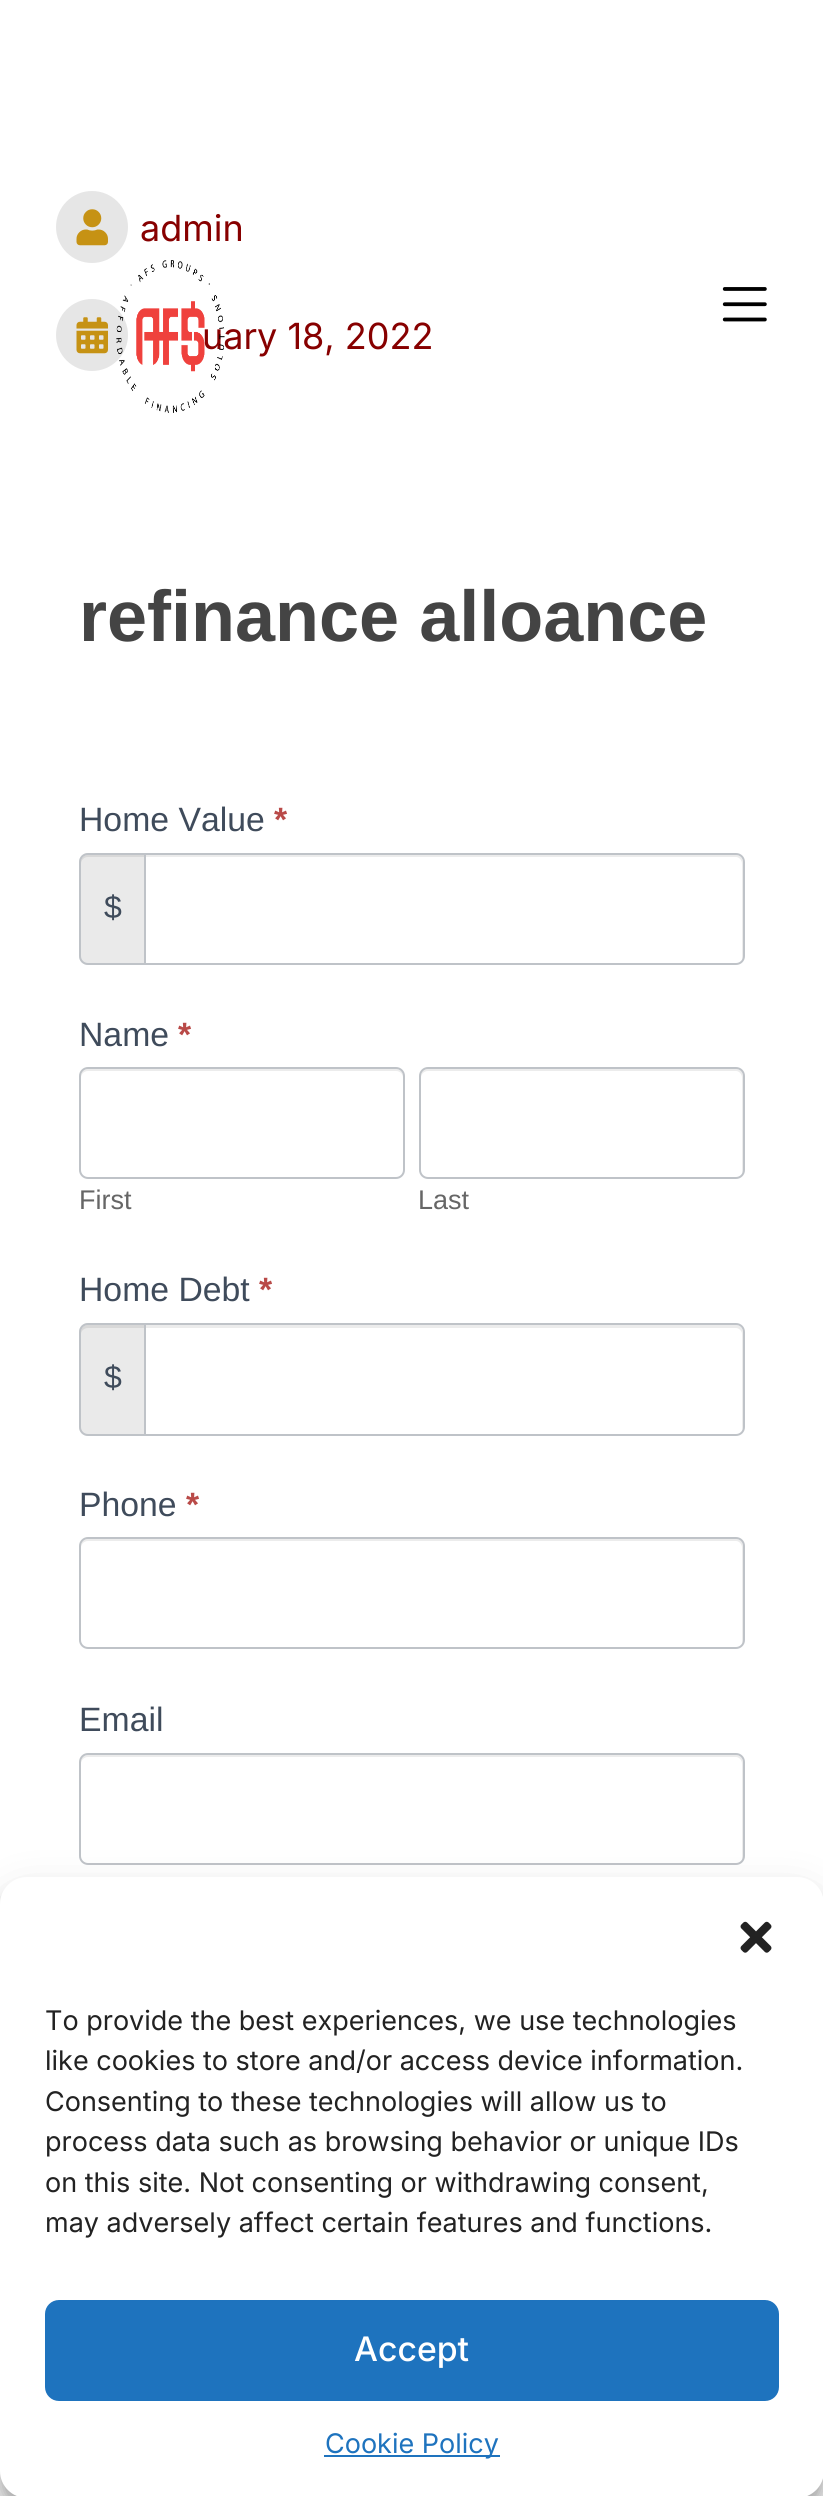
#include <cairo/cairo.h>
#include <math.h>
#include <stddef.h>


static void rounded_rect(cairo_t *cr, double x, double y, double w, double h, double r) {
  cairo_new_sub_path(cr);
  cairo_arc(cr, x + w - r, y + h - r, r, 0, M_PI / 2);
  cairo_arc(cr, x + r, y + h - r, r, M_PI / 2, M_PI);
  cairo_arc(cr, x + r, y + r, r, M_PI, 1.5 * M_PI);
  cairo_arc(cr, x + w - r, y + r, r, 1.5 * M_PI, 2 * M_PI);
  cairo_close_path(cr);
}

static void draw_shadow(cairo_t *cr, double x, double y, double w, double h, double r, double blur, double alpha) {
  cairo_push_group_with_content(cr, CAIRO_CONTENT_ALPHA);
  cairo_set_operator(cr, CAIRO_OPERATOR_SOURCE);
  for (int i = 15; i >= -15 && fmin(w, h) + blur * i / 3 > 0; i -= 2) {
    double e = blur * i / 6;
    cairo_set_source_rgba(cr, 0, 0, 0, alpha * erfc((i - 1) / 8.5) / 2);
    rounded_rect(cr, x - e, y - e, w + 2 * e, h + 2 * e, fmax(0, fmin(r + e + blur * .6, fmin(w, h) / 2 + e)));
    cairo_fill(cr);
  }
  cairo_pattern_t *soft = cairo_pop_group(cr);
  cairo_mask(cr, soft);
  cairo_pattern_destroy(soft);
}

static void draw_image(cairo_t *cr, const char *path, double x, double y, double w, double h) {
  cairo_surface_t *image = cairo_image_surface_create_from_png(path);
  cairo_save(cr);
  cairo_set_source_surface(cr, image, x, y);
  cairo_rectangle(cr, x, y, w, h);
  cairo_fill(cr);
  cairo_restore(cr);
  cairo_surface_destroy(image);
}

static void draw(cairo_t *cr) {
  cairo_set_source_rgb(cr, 1, 1, 1);
  cairo_paint(cr);
  cairo_set_source_rgb(cr, 230 / 255.0, 230 / 255.0, 230 / 255.0);
  cairo_arc(cr, 92, 227, 36, 0, 2 * M_PI);
  cairo_fill(cr);
  draw_image(cr, "images/1.png", 76, 209, 32, 37);
  cairo_arc(cr, 92, 335, 36, 0, 2 * M_PI);
  cairo_fill(cr);
  draw_image(cr, "images/2.png", 76, 317, 32, 37);
  cairo_set_source_rgb(cr, 234 / 255.0, 234 / 255.0, 234 / 255.0);
  cairo_new_path(cr);
  cairo_move_to(cr, 88, 853);
  cairo_line_to(cr, 146, 853);
  cairo_line_to(cr, 146, 965);
  cairo_line_to(cr, 88, 965);
  cairo_curve_to(cr, 83, 965, 79, 961, 79, 956);
  cairo_line_to(cr, 79, 862);
  cairo_curve_to(cr, 79, 857, 83, 853, 88, 853);
  cairo_close_path(cr);
  cairo_fill(cr);
  cairo_set_source_rgb(cr, 216 / 255.0, 216 / 255.0, 216 / 255.0);
  cairo_new_path(cr);
  cairo_move_to(cr, 88, 857);
  cairo_line_to(cr, 144, 857);
  cairo_line_to(cr, 144, 855);
  cairo_line_to(cr, 88, 855);
  cairo_curve_to(cr, 84, 855, 81, 858, 81, 862);
  cairo_line_to(cr, 81, 864);
  cairo_curve_to(cr, 81, 860, 84, 857, 88, 857);
  cairo_close_path(cr);
  cairo_fill(cr);
  cairo_new_path(cr);
  cairo_move_to(cr, 88, 854);
  cairo_line_to(cr, 145, 854);
  cairo_line_to(cr, 145, 964);
  cairo_line_to(cr, 88, 964);
  cairo_curve_to(cr, 83.5, 964, 80, 960.5, 80, 956);
  cairo_line_to(cr, 80, 862);
  cairo_curve_to(cr, 80, 857.5, 83.5, 854, 88, 854);
  cairo_close_path(cr);
  cairo_set_source_rgb(cr, 191 / 255.0, 195 / 255.0, 200 / 255.0);
  cairo_stroke(cr);
  cairo_set_source_rgb(cr, 1, 1, 1);
  cairo_new_path(cr);
  cairo_move_to(cr, 144, 853);
  cairo_line_to(cr, 736, 853);
  cairo_curve_to(cr, 741, 853, 745, 857, 745, 862);
  cairo_line_to(cr, 745, 956);
  cairo_curve_to(cr, 745, 961, 741, 965, 736, 965);
  cairo_line_to(cr, 144, 965);
  cairo_close_path(cr);
  cairo_fill(cr);
  cairo_set_source_rgb(cr, 236 / 255.0, 236 / 255.0, 236 / 255.0);
  cairo_new_path(cr);
  cairo_move_to(cr, 146, 857);
  cairo_line_to(cr, 736, 857);
  cairo_curve_to(cr, 739, 857, 742, 860, 742, 864);
  cairo_line_to(cr, 742, 960);
  cairo_curve_to(cr, 743, 959, 743, 957, 743, 956);
  cairo_line_to(cr, 743, 862);
  cairo_curve_to(cr, 743, 858, 740, 855, 736, 855);
  cairo_line_to(cr, 146, 855);
  cairo_close_path(cr);
  cairo_fill(cr);
  cairo_new_path(cr);
  cairo_move_to(cr, 145, 854);
  cairo_line_to(cr, 736, 854);
  cairo_curve_to(cr, 740.5, 854, 744, 857.5, 744, 862);
  cairo_line_to(cr, 744, 956);
  cairo_curve_to(cr, 744, 960.5, 740.5, 964, 736, 964);
  cairo_line_to(cr, 145, 964);
  cairo_close_path(cr);
  cairo_set_source_rgb(cr, 191 / 255.0, 195 / 255.0, 200 / 255.0);
  cairo_stroke(cr);
  cairo_set_source_rgb(cr, 236 / 255.0, 236 / 255.0, 236 / 255.0);
  cairo_new_path(cr);
  cairo_move_to(cr, 88, 1071);
  cairo_line_to(cr, 396, 1071);
  cairo_curve_to(cr, 400, 1071, 403, 1074, 403, 1078);
  cairo_line_to(cr, 403, 1076);
  cairo_curve_to(cr, 403, 1072, 400, 1069, 396, 1069);
  cairo_line_to(cr, 88, 1069);
  cairo_curve_to(cr, 84, 1069, 81, 1072, 81, 1076);
  cairo_line_to(cr, 81, 1078);
  cairo_curve_to(cr, 81, 1074, 84, 1071, 88, 1071);
  cairo_close_path(cr);
  cairo_fill(cr);
  rounded_rect(cr, 80, 1068, 324, 110, 8);
  cairo_set_source_rgb(cr, 191 / 255.0, 195 / 255.0, 200 / 255.0);
  cairo_stroke(cr);
  cairo_set_source_rgb(cr, 236 / 255.0, 236 / 255.0, 236 / 255.0);
  cairo_new_path(cr);
  cairo_move_to(cr, 428, 1071);
  cairo_line_to(cr, 736, 1071);
  cairo_curve_to(cr, 739, 1071, 742, 1074, 742, 1078);
  cairo_line_to(cr, 742, 1174);
  cairo_curve_to(cr, 743, 1173, 743, 1171, 743, 1170);
  cairo_line_to(cr, 743, 1076);
  cairo_curve_to(cr, 743, 1072, 740, 1069, 736, 1069);
  cairo_line_to(cr, 428, 1069);
  cairo_curve_to(cr, 424, 1069, 421, 1072, 421, 1076);
  cairo_line_to(cr, 421, 1078);
  cairo_curve_to(cr, 421, 1074, 424, 1071, 428, 1071);
  cairo_close_path(cr);
  cairo_fill(cr);
  rounded_rect(cr, 420, 1068, 324, 110, 8);
  cairo_set_source_rgb(cr, 191 / 255.0, 195 / 255.0, 200 / 255.0);
  cairo_stroke(cr);
  cairo_set_source_rgb(cr, 234 / 255.0, 234 / 255.0, 234 / 255.0);
  cairo_new_path(cr);
  cairo_move_to(cr, 88, 1323);
  cairo_line_to(cr, 146, 1323);
  cairo_line_to(cr, 146, 1436);
  cairo_line_to(cr, 88, 1436);
  cairo_curve_to(cr, 83, 1436, 79, 1432, 79, 1427);
  cairo_line_to(cr, 79, 1332);
  cairo_curve_to(cr, 79, 1327, 83, 1323, 88, 1323);
  cairo_close_path(cr);
  cairo_fill(cr);
  cairo_set_source_rgb(cr, 216 / 255.0, 216 / 255.0, 216 / 255.0);
  cairo_new_path(cr);
  cairo_move_to(cr, 88, 1328);
  cairo_line_to(cr, 144, 1328);
  cairo_line_to(cr, 144, 1325);
  cairo_line_to(cr, 88, 1325);
  cairo_curve_to(cr, 84, 1325, 81, 1328, 81, 1332);
  cairo_line_to(cr, 81, 1334);
  cairo_curve_to(cr, 81, 1331, 84, 1328, 88, 1328);
  cairo_close_path(cr);
  cairo_fill(cr);
  cairo_new_path(cr);
  cairo_move_to(cr, 88, 1324);
  cairo_line_to(cr, 145, 1324);
  cairo_line_to(cr, 145, 1435);
  cairo_line_to(cr, 88, 1435);
  cairo_curve_to(cr, 83.5, 1435, 80, 1431.5, 80, 1427);
  cairo_line_to(cr, 80, 1332);
  cairo_curve_to(cr, 80, 1327.5, 83.5, 1324, 88, 1324);
  cairo_close_path(cr);
  cairo_set_source_rgb(cr, 191 / 255.0, 195 / 255.0, 200 / 255.0);
  cairo_stroke(cr);
  cairo_set_source_rgb(cr, 1, 1, 1);
  cairo_new_path(cr);
  cairo_move_to(cr, 144, 1323);
  cairo_line_to(cr, 736, 1323);
  cairo_curve_to(cr, 741, 1323, 745, 1327, 745, 1332);
  cairo_line_to(cr, 745, 1427);
  cairo_curve_to(cr, 745, 1432, 741, 1436, 736, 1436);
  cairo_line_to(cr, 144, 1436);
  cairo_close_path(cr);
  cairo_fill(cr);
  cairo_set_source_rgb(cr, 236 / 255.0, 236 / 255.0, 236 / 255.0);
  cairo_new_path(cr);
  cairo_move_to(cr, 146, 1328);
  cairo_line_to(cr, 736, 1328);
  cairo_curve_to(cr, 739, 1328, 742, 1331, 742, 1334);
  cairo_line_to(cr, 742, 1430);
  cairo_curve_to(cr, 743, 1429, 743, 1427, 743, 1426);
  cairo_line_to(cr, 743, 1332);
  cairo_curve_to(cr, 743, 1328, 740, 1325, 736, 1325);
  cairo_line_to(cr, 146, 1325);
  cairo_close_path(cr);
  cairo_fill(cr);
  cairo_new_path(cr);
  cairo_move_to(cr, 145, 1324);
  cairo_line_to(cr, 736, 1324);
  cairo_curve_to(cr, 740.5, 1324, 744, 1327.5, 744, 1332);
  cairo_line_to(cr, 744, 1427);
  cairo_curve_to(cr, 744, 1431.5, 740.5, 1435, 736, 1435);
  cairo_line_to(cr, 145, 1435);
  cairo_close_path(cr);
  cairo_set_source_rgb(cr, 191 / 255.0, 195 / 255.0, 200 / 255.0);
  cairo_stroke(cr);
  cairo_set_source_rgb(cr, 236 / 255.0, 236 / 255.0, 236 / 255.0);
  cairo_new_path(cr);
  cairo_move_to(cr, 88, 1541);
  cairo_line_to(cr, 736, 1541);
  cairo_curve_to(cr, 739, 1541, 742, 1544, 742, 1548);
  cairo_line_to(cr, 742, 1644);
  cairo_curve_to(cr, 743, 1643, 743, 1641, 743, 1640);
  cairo_line_to(cr, 743, 1546);
  cairo_curve_to(cr, 743, 1542, 740, 1539, 736, 1539);
  cairo_line_to(cr, 88, 1539);
  cairo_curve_to(cr, 84, 1539, 81, 1542, 81, 1546);
  cairo_line_to(cr, 81, 1548);
  cairo_curve_to(cr, 81, 1544, 84, 1541, 88, 1541);
  cairo_close_path(cr);
  cairo_fill(cr);
  rounded_rect(cr, 80, 1538, 664, 110, 8);
  cairo_set_source_rgb(cr, 191 / 255.0, 195 / 255.0, 200 / 255.0);
  cairo_stroke(cr);
  cairo_set_source_rgb(cr, 236 / 255.0, 236 / 255.0, 236 / 255.0);
  cairo_new_path(cr);
  cairo_move_to(cr, 88, 1757);
  cairo_line_to(cr, 736, 1757);
  cairo_curve_to(cr, 739, 1757, 742, 1760, 742, 1764);
  cairo_line_to(cr, 742, 1860);
  cairo_curve_to(cr, 743, 1859, 743, 1857, 743, 1856);
  cairo_line_to(cr, 743, 1762);
  cairo_curve_to(cr, 743, 1758, 740, 1755, 736, 1755);
  cairo_line_to(cr, 88, 1755);
  cairo_curve_to(cr, 84, 1755, 81, 1758, 81, 1762);
  cairo_line_to(cr, 81, 1764);
  cairo_curve_to(cr, 81, 1760, 84, 1757, 88, 1757);
  cairo_close_path(cr);
  cairo_fill(cr);
  rounded_rect(cr, 80, 1754, 664, 110, 8);
  cairo_set_source_rgb(cr, 191 / 255.0, 195 / 255.0, 200 / 255.0);
  cairo_stroke(cr);
  draw_image(cr, "images/4.png", 722, 287, 45, 35);
  cairo_set_source_rgb(cr, 0, 0, 0);
  draw_shadow(cr, 0, 1890, 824, 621, 27, 7, 0.23);
  draw_shadow(cr, 0, 1899, 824, 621, 27, 22.5, 0.19);
  cairo_set_source_rgb(cr, 1, 1, 1);
  rounded_rect(cr, 0, 1877, 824, 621, 27);
  cairo_fill(cr);
  draw_image(cr, "images/5.png", 740, 1921, 32, 32);
  cairo_set_source_rgb(cr, 30 / 255.0, 115 / 255.0, 190 / 255.0);
  rounded_rect(cr, 46, 2301, 732, 99, 13);
  cairo_fill_preserve(cr);
  cairo_stroke(cr);
  cairo_rectangle(cr, 324, 2455, 176, 2);
  cairo_fill(cr);
  cairo_select_font_face(cr, "Inter", CAIRO_FONT_SLANT_NORMAL, CAIRO_FONT_WEIGHT_NORMAL);
  cairo_set_font_size(cr, 36);
  cairo_set_source_rgb(cr, 135 / 255.0, 0, 0);
  cairo_move_to(cr, 140, 241);
  cairo_show_text(cr, "admin");
  cairo_move_to(cr, 202, 349);
  cairo_show_text(cr, "uary 18, 2022");
  cairo_select_font_face(cr, "Liberation Sans", CAIRO_FONT_SLANT_NORMAL, CAIRO_FONT_WEIGHT_BOLD);
  cairo_set_font_size(cr, 72);
  cairo_set_source_rgb(cr, 68 / 255.0, 68 / 255.0, 68 / 255.0);
  cairo_move_to(cr, 79, 641);
  cairo_show_text(cr, "refinance alloance");
  cairo_select_font_face(cr, "Liberation Sans", CAIRO_FONT_SLANT_NORMAL, CAIRO_FONT_WEIGHT_NORMAL);
  cairo_set_font_size(cr, 33.75);
  cairo_set_source_rgb(cr, 63 / 255.0, 75 / 255.0, 91 / 255.0);
  cairo_move_to(cr, 79, 831);
  cairo_show_text(cr, "Home Value");
  cairo_select_font_face(cr, "Liberation Sans", CAIRO_FONT_SLANT_NORMAL, CAIRO_FONT_WEIGHT_BOLD);
  cairo_set_source_rgb(cr, 185 / 255.0, 74 / 255.0, 72 / 255.0);
  cairo_move_to(cr, 274, 831);
  cairo_show_text(cr, "*");
  cairo_select_font_face(cr, "Liberation Sans", CAIRO_FONT_SLANT_NORMAL, CAIRO_FONT_WEIGHT_NORMAL);
  cairo_set_font_size(cr, 32);
  cairo_set_source_rgb(cr, 63 / 255.0, 75 / 255.0, 91 / 255.0);
  cairo_move_to(cr, 104, 918);
  cairo_show_text(cr, "$");
  cairo_set_font_size(cr, 33.75);
  cairo_move_to(cr, 79, 1046);
  cairo_show_text(cr, "Name");
  cairo_select_font_face(cr, "Liberation Sans", CAIRO_FONT_SLANT_NORMAL, CAIRO_FONT_WEIGHT_BOLD);
  cairo_set_source_rgb(cr, 185 / 255.0, 74 / 255.0, 72 / 255.0);
  cairo_move_to(cr, 178, 1046);
  cairo_show_text(cr, "*");
  cairo_select_font_face(cr, "Liberation Sans", CAIRO_FONT_SLANT_NORMAL, CAIRO_FONT_WEIGHT_NORMAL);
  cairo_set_font_size(cr, 27);
  cairo_set_source_rgb(cr, 102 / 255.0, 102 / 255.0, 102 / 255.0);
  cairo_move_to(cr, 79, 1209);
  cairo_show_text(cr, "First");
  cairo_move_to(cr, 418, 1209);
  cairo_show_text(cr, "Last");
  cairo_set_font_size(cr, 33.75);
  cairo_set_source_rgb(cr, 63 / 255.0, 75 / 255.0, 91 / 255.0);
  cairo_move_to(cr, 79, 1301);
  cairo_show_text(cr, "Home Debt");
  cairo_select_font_face(cr, "Liberation Sans", CAIRO_FONT_SLANT_NORMAL, CAIRO_FONT_WEIGHT_BOLD);
  cairo_set_source_rgb(cr, 185 / 255.0, 74 / 255.0, 72 / 255.0);
  cairo_move_to(cr, 259, 1301);
  cairo_show_text(cr, "*");
  cairo_select_font_face(cr, "Liberation Sans", CAIRO_FONT_SLANT_NORMAL, CAIRO_FONT_WEIGHT_NORMAL);
  cairo_set_font_size(cr, 32);
  cairo_set_source_rgb(cr, 63 / 255.0, 75 / 255.0, 91 / 255.0);
  cairo_move_to(cr, 104, 1388);
  cairo_show_text(cr, "$");
  cairo_set_font_size(cr, 33.75);
  cairo_move_to(cr, 79, 1516);
  cairo_show_text(cr, "Phone");
  cairo_select_font_face(cr, "Liberation Sans", CAIRO_FONT_SLANT_NORMAL, CAIRO_FONT_WEIGHT_BOLD);
  cairo_set_source_rgb(cr, 185 / 255.0, 74 / 255.0, 72 / 255.0);
  cairo_move_to(cr, 186, 1516);
  cairo_show_text(cr, "*");
  cairo_select_font_face(cr, "Liberation Sans", CAIRO_FONT_SLANT_NORMAL, CAIRO_FONT_WEIGHT_NORMAL);
  cairo_set_source_rgb(cr, 63 / 255.0, 75 / 255.0, 91 / 255.0);
  cairo_move_to(cr, 79, 1731);
  cairo_show_text(cr, "Email");
  draw_image(cr, "images/3.png", 116, 260, 109, 153);
  cairo_select_font_face(cr, "Inter", CAIRO_FONT_SLANT_NORMAL, CAIRO_FONT_WEIGHT_NORMAL);
  cairo_set_font_size(cr, 27);
  cairo_set_source_rgb(cr, 34 / 255.0, 34 / 255.0, 34 / 255.0);
  cairo_move_to(cr, 45, 2030);
  cairo_show_text(cr, "To provide the best experiences, we use technologies");
  cairo_move_to(cr, 45, 2070);
  cairo_show_text(cr, "like cookies to store and/or access device information.");
  cairo_move_to(cr, 45, 2111);
  cairo_show_text(cr, "Consenting to these technologies will allow us to");
  cairo_move_to(cr, 45, 2151);
  cairo_show_text(cr, "process data such as browsing behavior or unique IDs");
  cairo_move_to(cr, 45, 2192);
  cairo_show_text(cr, "on this site. Not consenting or withdrawing consent,");
  cairo_move_to(cr, 45, 2232);
  cairo_show_text(cr, "may adversely affect certain features and functions.");
  cairo_select_font_face(cr, "Inter Medium", CAIRO_FONT_SLANT_NORMAL, CAIRO_FONT_WEIGHT_NORMAL);
  cairo_set_font_size(cr, 33.75);
  cairo_set_source_rgb(cr, 1, 1, 1);
  cairo_move_to(cr, 354, 2361);
  cairo_show_text(cr, "Accept");
  cairo_select_font_face(cr, "Inter", CAIRO_FONT_SLANT_NORMAL, CAIRO_FONT_WEIGHT_NORMAL);
  cairo_set_font_size(cr, 27);
  cairo_set_source_rgb(cr, 30 / 255.0, 115 / 255.0, 190 / 255.0);
  cairo_move_to(cr, 325, 2453);
  cairo_show_text(cr, "Cookie Policy");
}

int main(void) {
  cairo_surface_t *surface = cairo_image_surface_create(CAIRO_FORMAT_RGB24, 823, 2496);
  cairo_t *cr = cairo_create(surface);
  cairo_font_options_t *options = cairo_font_options_create();
  cairo_font_options_set_hint_metrics(options, CAIRO_HINT_METRICS_OFF);
  cairo_font_options_set_hint_style(options, CAIRO_HINT_STYLE_NONE);
  cairo_set_font_options(cr, options);
  cairo_set_miter_limit(cr, 4);
  draw(cr);
  cairo_surface_write_to_png(surface, "out.png");
  cairo_font_options_destroy(options);
  cairo_destroy(cr);
  cairo_surface_destroy(surface);
  return 0;
}
